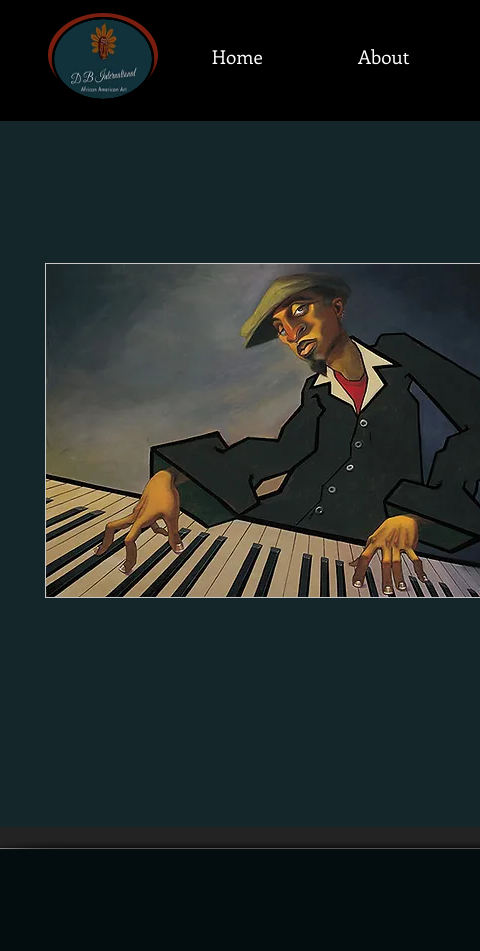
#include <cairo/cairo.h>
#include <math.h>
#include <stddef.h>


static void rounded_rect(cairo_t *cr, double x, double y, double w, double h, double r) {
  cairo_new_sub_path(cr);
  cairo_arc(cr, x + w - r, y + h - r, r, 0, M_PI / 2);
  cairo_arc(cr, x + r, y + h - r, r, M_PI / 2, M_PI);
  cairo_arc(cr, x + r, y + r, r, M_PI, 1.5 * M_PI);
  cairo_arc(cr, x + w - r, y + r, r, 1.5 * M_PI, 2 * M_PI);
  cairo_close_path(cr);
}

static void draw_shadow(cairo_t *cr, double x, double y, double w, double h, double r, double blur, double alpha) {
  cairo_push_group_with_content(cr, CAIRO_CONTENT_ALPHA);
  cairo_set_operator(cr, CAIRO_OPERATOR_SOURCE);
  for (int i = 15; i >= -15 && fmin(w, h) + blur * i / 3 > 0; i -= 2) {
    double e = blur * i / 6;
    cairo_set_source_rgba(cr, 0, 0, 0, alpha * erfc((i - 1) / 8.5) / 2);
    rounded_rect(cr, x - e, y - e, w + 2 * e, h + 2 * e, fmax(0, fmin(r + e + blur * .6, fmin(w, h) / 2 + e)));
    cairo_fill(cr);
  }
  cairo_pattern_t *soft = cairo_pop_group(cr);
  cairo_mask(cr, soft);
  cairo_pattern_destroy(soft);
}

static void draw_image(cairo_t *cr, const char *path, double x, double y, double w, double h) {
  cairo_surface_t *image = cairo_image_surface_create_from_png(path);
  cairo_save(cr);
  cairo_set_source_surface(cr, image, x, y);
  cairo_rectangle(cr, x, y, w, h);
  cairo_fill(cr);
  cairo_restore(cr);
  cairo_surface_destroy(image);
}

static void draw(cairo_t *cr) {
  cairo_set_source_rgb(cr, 0, 0, 0);
  cairo_paint(cr);
  cairo_set_source_rgb(cr, 122 / 255.0, 30 / 255.0, 15 / 255.0);
  cairo_new_path(cr);
  cairo_move_to(cr, 158, 55);
  cairo_curve_to(cr, 158, 78, 133, 97, 103, 97);
  cairo_curve_to(cr, 73, 97, 48, 78, 48, 55);
  cairo_curve_to(cr, 48, 32, 73, 13, 103, 13);
  cairo_curve_to(cr, 133, 13, 158, 32, 158, 55);
  cairo_close_path(cr);
  cairo_fill(cr);
  cairo_set_source_rgb(cr, 0, 0, 0);
  draw_shadow(cr, 52, 26, 102, 84, 42, 3, 0.5);
  cairo_set_source_rgb(cr, 0, 0, 0);
  cairo_new_path(cr);
  cairo_move_to(cr, 103, 17);
  cairo_curve_to(cr, 131, 17, 154, 36, 154, 59);
  cairo_curve_to(cr, 154, 82, 131, 101, 103, 101);
  cairo_curve_to(cr, 75, 101, 52, 82, 52, 59);
  cairo_curve_to(cr, 52, 36, 75, 17, 103, 17);
  cairo_close_path(cr);
  cairo_fill(cr);
  cairo_new_path(cr);
  cairo_move_to(cr, 103, 18);
  cairo_curve_to(cr, 130.5, 18, 153, 36.5, 153, 59);
  cairo_curve_to(cr, 153, 81.5, 130.5, 100, 103, 100);
  cairo_curve_to(cr, 75.5, 100, 53, 81.5, 53, 59);
  cairo_curve_to(cr, 53, 36.5, 75.5, 18, 103, 18);
  cairo_close_path(cr);
  cairo_stroke(cr);
  draw_image(cr, "images/1.png", 54, 19, 98, 80);
  cairo_set_source_rgb(cr, 20 / 255.0, 38 / 255.0, 42 / 255.0);
  cairo_rectangle(cr, 0, 121, 480, 706);
  cairo_fill(cr);
  cairo_rectangle(cr, 45.5, 263.5, 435, 334);
  cairo_set_source_rgb(cr, 202 / 255.0, 202 / 255.0, 202 / 255.0);
  cairo_set_line_width(cr, 1);
  cairo_stroke(cr);
  draw_image(cr, "images/2.png", 46, 264, 434, 333);
  cairo_set_source_rgb(cr, 35 / 255.0, 35 / 255.0, 35 / 255.0);
  cairo_rectangle(cr, 0, 827, 480, 21);
  cairo_fill(cr);
  cairo_set_source_rgb(cr, 0, 0, 0);
  draw_shadow(cr, 0, 848, 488, 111, 0, 2.5, 0.7);
  cairo_set_source_rgb(cr, 7 / 255.0, 27 / 255.0, 31 / 255.0);
  cairo_rectangle(cr, 0, 849, 480, 102);
  cairo_fill(cr);
  cairo_set_source_rgb(cr, 1, 1, 1);
  cairo_rectangle(cr, 0, 848, 480, 1);
  cairo_fill(cr);
  draw_image(cr, "images/3.png", 3, 842, 97, 7);
  draw_image(cr, "images/4.png", 100, 842, 380, 7);
  cairo_set_source_rgba(cr, 0, 0, 0, 0.5);
  cairo_rectangle(cr, 0, 848, 480, 103);
  cairo_fill(cr);
  cairo_select_font_face(cr, "Enriqueta", CAIRO_FONT_SLANT_NORMAL, CAIRO_FONT_WEIGHT_NORMAL);
  cairo_set_font_size(cr, 19);
  cairo_set_source_rgb(cr, 1, 1, 1);
  cairo_move_to(cr, 212, 64);
  cairo_show_text(cr, "Home");
  cairo_move_to(cr, 358, 64);
  cairo_show_text(cr, "About");
}

int main(void) {
  cairo_surface_t *surface = cairo_image_surface_create(CAIRO_FORMAT_RGB24, 480, 951);
  cairo_t *cr = cairo_create(surface);
  cairo_font_options_t *options = cairo_font_options_create();
  cairo_font_options_set_hint_metrics(options, CAIRO_HINT_METRICS_OFF);
  cairo_font_options_set_hint_style(options, CAIRO_HINT_STYLE_NONE);
  cairo_set_font_options(cr, options);
  cairo_set_miter_limit(cr, 4);
  draw(cr);
  cairo_surface_write_to_png(surface, "out.png");
  cairo_font_options_destroy(options);
  cairo_destroy(cr);
  cairo_surface_destroy(surface);
  return 0;
}
